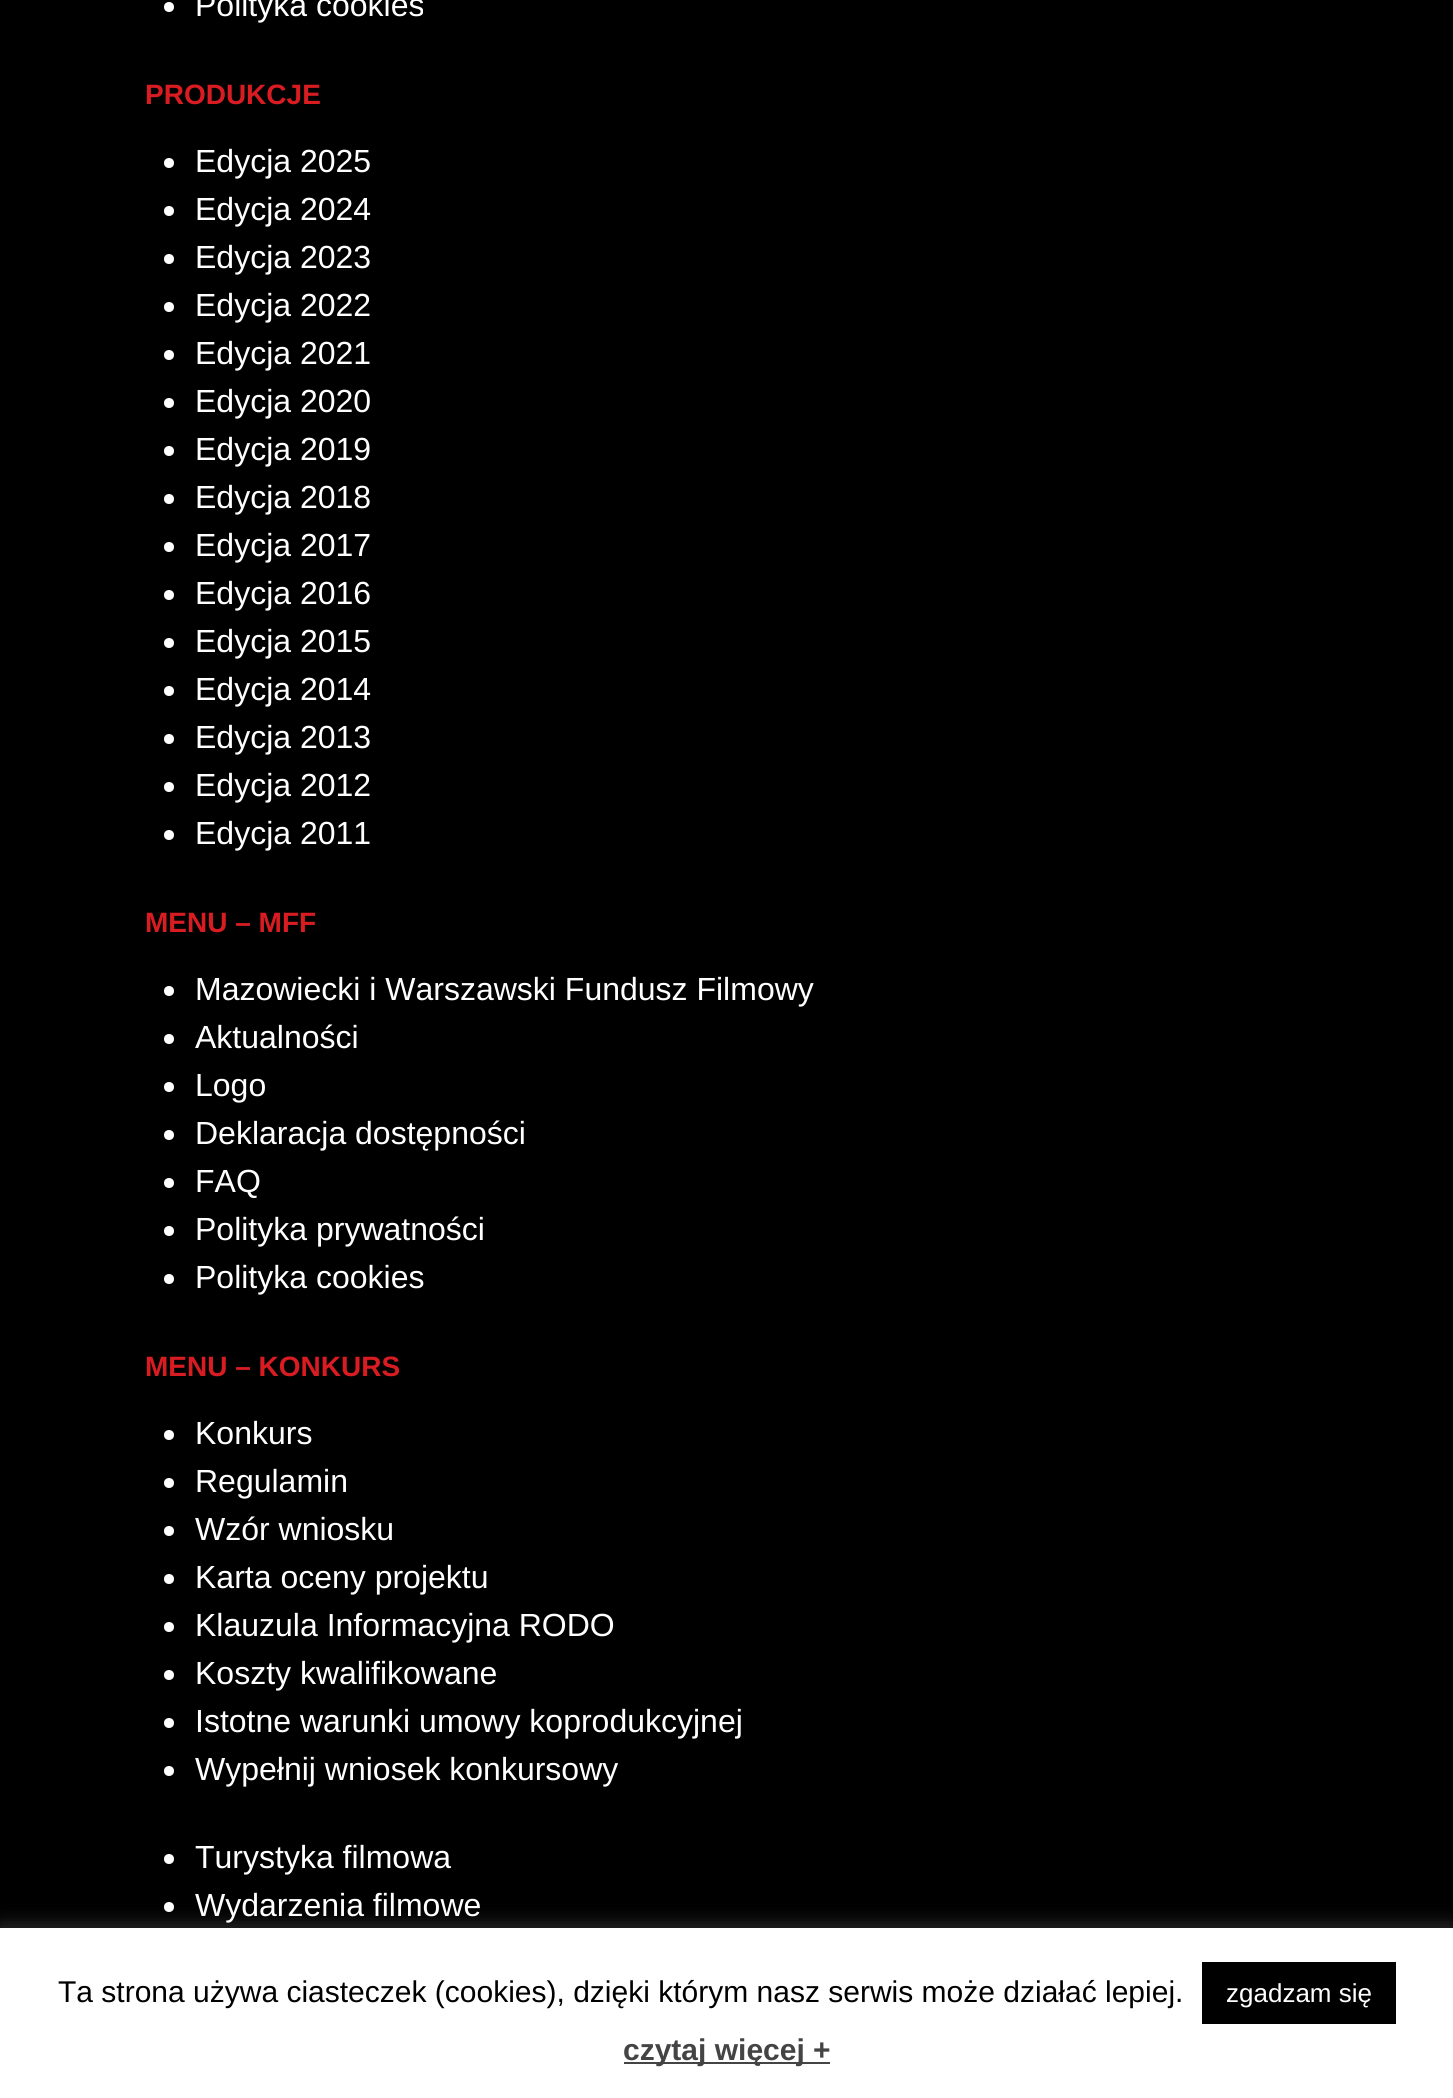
#include <cairo/cairo.h>
#include <math.h>
#include <stddef.h>


static void rounded_rect(cairo_t *cr, double x, double y, double w, double h, double r) {
  cairo_new_sub_path(cr);
  cairo_arc(cr, x + w - r, y + h - r, r, 0, M_PI / 2);
  cairo_arc(cr, x + r, y + h - r, r, M_PI / 2, M_PI);
  cairo_arc(cr, x + r, y + r, r, M_PI, 1.5 * M_PI);
  cairo_arc(cr, x + w - r, y + r, r, 1.5 * M_PI, 2 * M_PI);
  cairo_close_path(cr);
}

static void draw_shadow(cairo_t *cr, double x, double y, double w, double h, double r, double blur, double alpha) {
  cairo_push_group_with_content(cr, CAIRO_CONTENT_ALPHA);
  cairo_set_operator(cr, CAIRO_OPERATOR_SOURCE);
  for (int i = 15; i >= -15 && fmin(w, h) + blur * i / 3 > 0; i -= 2) {
    double e = blur * i / 6;
    cairo_set_source_rgba(cr, 0, 0, 0, alpha * erfc((i - 1) / 8.5) / 2);
    rounded_rect(cr, x - e, y - e, w + 2 * e, h + 2 * e, fmax(0, fmin(r + e + blur * .6, fmin(w, h) / 2 + e)));
    cairo_fill(cr);
  }
  cairo_pattern_t *soft = cairo_pop_group(cr);
  cairo_mask(cr, soft);
  cairo_pattern_destroy(soft);
}

static void draw(cairo_t *cr) {
  cairo_set_source_rgb(cr, 0, 0, 0);
  cairo_paint(cr);
  cairo_set_source_rgb(cr, 1, 1, 1);
  cairo_arc(cr, 169, 7, 5, 0, 2 * M_PI);
  cairo_fill(cr);
  cairo_arc(cr, 169, 163, 5, 0, 2 * M_PI);
  cairo_fill(cr);
  cairo_arc(cr, 169, 211, 5, 0, 2 * M_PI);
  cairo_fill(cr);
  cairo_arc(cr, 169, 259, 5, 0, 2 * M_PI);
  cairo_fill(cr);
  cairo_arc(cr, 169, 307, 5, 0, 2 * M_PI);
  cairo_fill(cr);
  cairo_arc(cr, 169, 355, 5, 0, 2 * M_PI);
  cairo_fill(cr);
  cairo_arc(cr, 169, 403, 5, 0, 2 * M_PI);
  cairo_fill(cr);
  cairo_arc(cr, 169, 451, 5, 0, 2 * M_PI);
  cairo_fill(cr);
  cairo_arc(cr, 169, 499, 5, 0, 2 * M_PI);
  cairo_fill(cr);
  cairo_arc(cr, 169, 547, 5, 0, 2 * M_PI);
  cairo_fill(cr);
  cairo_arc(cr, 169, 595, 5, 0, 2 * M_PI);
  cairo_fill(cr);
  cairo_arc(cr, 169, 643, 5, 0, 2 * M_PI);
  cairo_fill(cr);
  cairo_arc(cr, 169, 691, 5, 0, 2 * M_PI);
  cairo_fill(cr);
  cairo_arc(cr, 169, 739, 5, 0, 2 * M_PI);
  cairo_fill(cr);
  cairo_arc(cr, 169, 787, 5, 0, 2 * M_PI);
  cairo_fill(cr);
  cairo_arc(cr, 169, 835, 5, 0, 2 * M_PI);
  cairo_fill(cr);
  cairo_arc(cr, 169, 991, 5, 0, 2 * M_PI);
  cairo_fill(cr);
  cairo_arc(cr, 169, 1039, 5, 0, 2 * M_PI);
  cairo_fill(cr);
  cairo_arc(cr, 169, 1087, 5, 0, 2 * M_PI);
  cairo_fill(cr);
  cairo_arc(cr, 169, 1135, 5, 0, 2 * M_PI);
  cairo_fill(cr);
  cairo_arc(cr, 169, 1183, 5, 0, 2 * M_PI);
  cairo_fill(cr);
  cairo_arc(cr, 169, 1231, 5, 0, 2 * M_PI);
  cairo_fill(cr);
  cairo_arc(cr, 169, 1279, 5, 0, 2 * M_PI);
  cairo_fill(cr);
  cairo_arc(cr, 169, 1435, 5, 0, 2 * M_PI);
  cairo_fill(cr);
  cairo_arc(cr, 169, 1483, 5, 0, 2 * M_PI);
  cairo_fill(cr);
  cairo_arc(cr, 169, 1531, 5, 0, 2 * M_PI);
  cairo_fill(cr);
  cairo_arc(cr, 169, 1579, 5, 0, 2 * M_PI);
  cairo_fill(cr);
  cairo_arc(cr, 169, 1627, 5, 0, 2 * M_PI);
  cairo_fill(cr);
  cairo_arc(cr, 169, 1675, 5, 0, 2 * M_PI);
  cairo_fill(cr);
  cairo_arc(cr, 169, 1723, 5, 0, 2 * M_PI);
  cairo_fill(cr);
  cairo_arc(cr, 169, 1771, 5, 0, 2 * M_PI);
  cairo_fill(cr);
  cairo_arc(cr, 169, 1859, 5, 0, 2 * M_PI);
  cairo_fill(cr);
  cairo_arc(cr, 169, 1907, 5, 0, 2 * M_PI);
  cairo_fill(cr);
  cairo_set_source_rgb(cr, 172 / 255.0, 171 / 255.0, 171 / 255.0);
  draw_shadow(cr, 0, 1926, 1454, 170, 0, 10, 0.3);
  cairo_set_source_rgb(cr, 1, 1, 1);
  cairo_rectangle(cr, 0, 1928, 1453, 170);
  cairo_fill(cr);
  cairo_set_source_rgb(cr, 0, 0, 0);
  cairo_rectangle(cr, 1202, 1962, 194, 62);
  cairo_fill(cr);
  cairo_set_source_rgb(cr, 68 / 255.0, 68 / 255.0, 68 / 255.0);
  cairo_rectangle(cr, 624, 2062, 206, 2);
  cairo_fill(cr);
  cairo_select_font_face(cr, "Liberation Sans", CAIRO_FONT_SLANT_NORMAL, CAIRO_FONT_WEIGHT_NORMAL);
  cairo_set_font_size(cr, 32);
  cairo_set_source_rgb(cr, 1, 1, 1);
  cairo_move_to(cr, 195, 16);
  cairo_show_text(cr, "Polityka cookies");
  cairo_select_font_face(cr, "Liberation Sans", CAIRO_FONT_SLANT_NORMAL, CAIRO_FONT_WEIGHT_BOLD);
  cairo_set_font_size(cr, 28);
  cairo_set_source_rgb(cr, 217 / 255.0, 28 / 255.0, 34 / 255.0);
  cairo_move_to(cr, 145, 104);
  cairo_show_text(cr, "PRODUKCJE");
  cairo_select_font_face(cr, "Liberation Sans", CAIRO_FONT_SLANT_NORMAL, CAIRO_FONT_WEIGHT_NORMAL);
  cairo_set_font_size(cr, 32);
  cairo_set_source_rgb(cr, 1, 1, 1);
  cairo_move_to(cr, 195, 172);
  cairo_show_text(cr, "Edycja 2025");
  cairo_move_to(cr, 195, 220);
  cairo_show_text(cr, "Edycja 2024");
  cairo_move_to(cr, 195, 268);
  cairo_show_text(cr, "Edycja 2023");
  cairo_move_to(cr, 195, 316);
  cairo_show_text(cr, "Edycja 2022");
  cairo_move_to(cr, 195, 364);
  cairo_show_text(cr, "Edycja 2021");
  cairo_move_to(cr, 195, 412);
  cairo_show_text(cr, "Edycja 2020");
  cairo_move_to(cr, 195, 460);
  cairo_show_text(cr, "Edycja 2019");
  cairo_move_to(cr, 195, 508);
  cairo_show_text(cr, "Edycja 2018");
  cairo_move_to(cr, 195, 556);
  cairo_show_text(cr, "Edycja 2017");
  cairo_move_to(cr, 195, 604);
  cairo_show_text(cr, "Edycja 2016");
  cairo_move_to(cr, 195, 652);
  cairo_show_text(cr, "Edycja 2015");
  cairo_move_to(cr, 195, 700);
  cairo_show_text(cr, "Edycja 2014");
  cairo_move_to(cr, 195, 748);
  cairo_show_text(cr, "Edycja 2013");
  cairo_move_to(cr, 195, 796);
  cairo_show_text(cr, "Edycja 2012");
  cairo_move_to(cr, 195, 844);
  cairo_show_text(cr, "Edycja 2011");
  cairo_select_font_face(cr, "Liberation Sans", CAIRO_FONT_SLANT_NORMAL, CAIRO_FONT_WEIGHT_BOLD);
  cairo_set_font_size(cr, 28);
  cairo_set_source_rgb(cr, 217 / 255.0, 28 / 255.0, 34 / 255.0);
  cairo_move_to(cr, 145, 932);
  cairo_show_text(cr, "MENU – MFF");
  cairo_select_font_face(cr, "Liberation Sans", CAIRO_FONT_SLANT_NORMAL, CAIRO_FONT_WEIGHT_NORMAL);
  cairo_set_font_size(cr, 32);
  cairo_set_source_rgb(cr, 1, 1, 1);
  cairo_move_to(cr, 195, 1000);
  cairo_show_text(cr, "Mazowiecki i Warszawski Fundusz Filmowy");
  cairo_move_to(cr, 195, 1048);
  cairo_show_text(cr, "Aktualności");
  cairo_move_to(cr, 195, 1096);
  cairo_show_text(cr, "Logo");
  cairo_move_to(cr, 195, 1144);
  cairo_show_text(cr, "Deklaracja dostępności");
  cairo_move_to(cr, 195, 1192);
  cairo_show_text(cr, "FAQ");
  cairo_move_to(cr, 195, 1240);
  cairo_show_text(cr, "Polityka prywatności");
  cairo_move_to(cr, 195, 1288);
  cairo_show_text(cr, "Polityka cookies");
  cairo_select_font_face(cr, "Liberation Sans", CAIRO_FONT_SLANT_NORMAL, CAIRO_FONT_WEIGHT_BOLD);
  cairo_set_font_size(cr, 28);
  cairo_set_source_rgb(cr, 217 / 255.0, 28 / 255.0, 34 / 255.0);
  cairo_move_to(cr, 145, 1376);
  cairo_show_text(cr, "MENU – KONKURS");
  cairo_select_font_face(cr, "Liberation Sans", CAIRO_FONT_SLANT_NORMAL, CAIRO_FONT_WEIGHT_NORMAL);
  cairo_set_font_size(cr, 32);
  cairo_set_source_rgb(cr, 1, 1, 1);
  cairo_move_to(cr, 195, 1444);
  cairo_show_text(cr, "Konkurs");
  cairo_move_to(cr, 195, 1492);
  cairo_show_text(cr, "Regulamin");
  cairo_move_to(cr, 195, 1540);
  cairo_show_text(cr, "Wzór wniosku");
  cairo_move_to(cr, 195, 1588);
  cairo_show_text(cr, "Karta oceny projektu");
  cairo_move_to(cr, 195, 1636);
  cairo_show_text(cr, "Klauzula Informacyjna RODO");
  cairo_move_to(cr, 195, 1684);
  cairo_show_text(cr, "Koszty kwalifikowane");
  cairo_move_to(cr, 195, 1732);
  cairo_show_text(cr, "Istotne warunki umowy koprodukcyjnej");
  cairo_move_to(cr, 195, 1780);
  cairo_show_text(cr, "Wypełnij wniosek konkursowy");
  cairo_move_to(cr, 195, 1868);
  cairo_show_text(cr, "Turystyka filmowa");
  cairo_move_to(cr, 195, 1916);
  cairo_show_text(cr, "Wydarzenia filmowe");
  cairo_set_font_size(cr, 30);
  cairo_set_source_rgb(cr, 0, 0, 0);
  cairo_move_to(cr, 58, 2002);
  cairo_show_text(cr, "Ta strona używa ciasteczek (cookies), dzięki którym nasz serwis może działać lepiej.");
  cairo_set_font_size(cr, 26);
  cairo_set_source_rgb(cr, 1, 1, 1);
  cairo_move_to(cr, 1226, 2002);
  cairo_show_text(cr, "zgadzam się");
  cairo_select_font_face(cr, "Liberation Sans", CAIRO_FONT_SLANT_NORMAL, CAIRO_FONT_WEIGHT_BOLD);
  cairo_set_font_size(cr, 30);
  cairo_set_source_rgb(cr, 68 / 255.0, 68 / 255.0, 68 / 255.0);
  cairo_move_to(cr, 623, 2060);
  cairo_show_text(cr, "czytaj więcej +");
}

int main(void) {
  cairo_surface_t *surface = cairo_image_surface_create(CAIRO_FORMAT_RGB24, 1453, 2098);
  cairo_t *cr = cairo_create(surface);
  cairo_font_options_t *options = cairo_font_options_create();
  cairo_font_options_set_hint_metrics(options, CAIRO_HINT_METRICS_OFF);
  cairo_font_options_set_hint_style(options, CAIRO_HINT_STYLE_NONE);
  cairo_set_font_options(cr, options);
  cairo_set_miter_limit(cr, 4);
  draw(cr);
  cairo_surface_write_to_png(surface, "out.png");
  cairo_font_options_destroy(options);
  cairo_destroy(cr);
  cairo_surface_destroy(surface);
  return 0;
}
